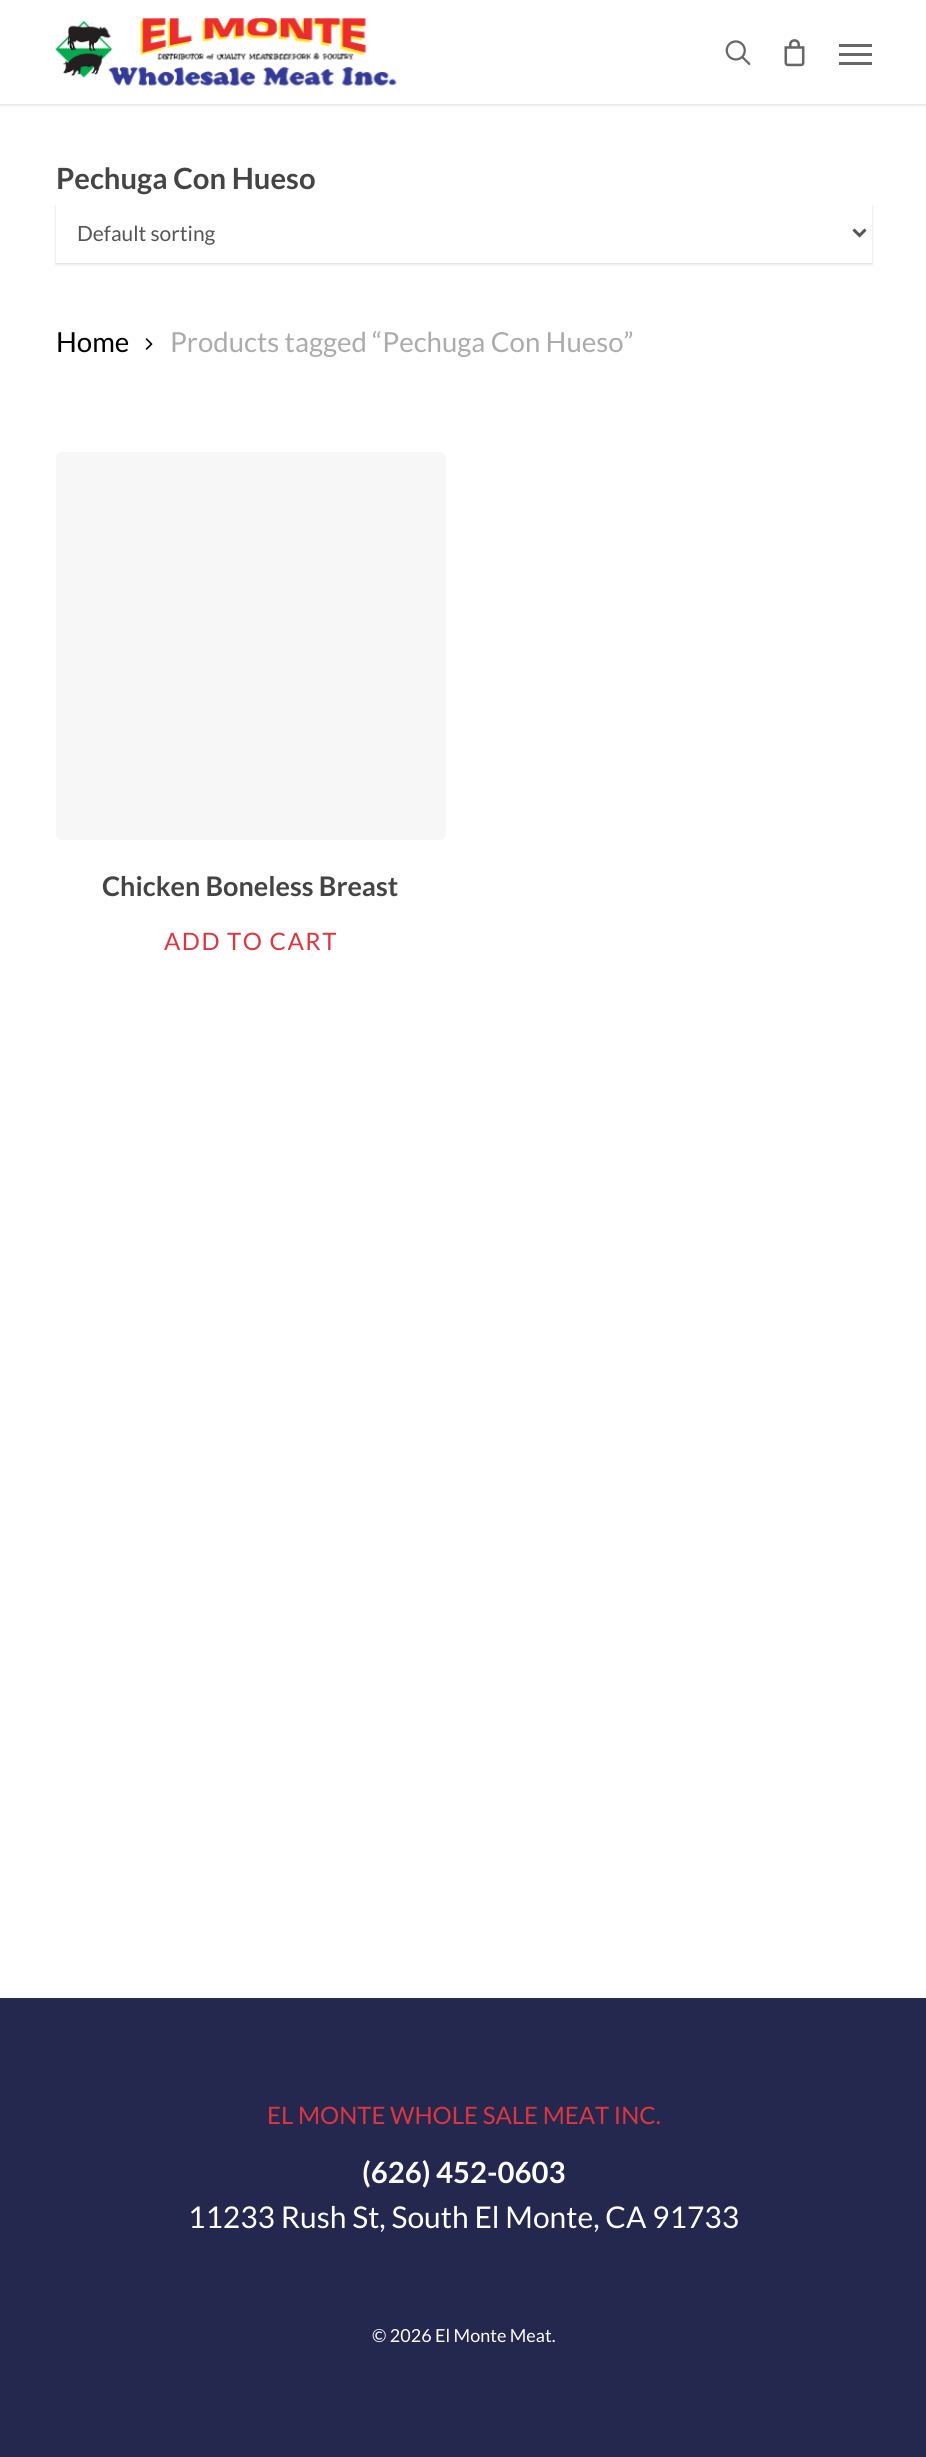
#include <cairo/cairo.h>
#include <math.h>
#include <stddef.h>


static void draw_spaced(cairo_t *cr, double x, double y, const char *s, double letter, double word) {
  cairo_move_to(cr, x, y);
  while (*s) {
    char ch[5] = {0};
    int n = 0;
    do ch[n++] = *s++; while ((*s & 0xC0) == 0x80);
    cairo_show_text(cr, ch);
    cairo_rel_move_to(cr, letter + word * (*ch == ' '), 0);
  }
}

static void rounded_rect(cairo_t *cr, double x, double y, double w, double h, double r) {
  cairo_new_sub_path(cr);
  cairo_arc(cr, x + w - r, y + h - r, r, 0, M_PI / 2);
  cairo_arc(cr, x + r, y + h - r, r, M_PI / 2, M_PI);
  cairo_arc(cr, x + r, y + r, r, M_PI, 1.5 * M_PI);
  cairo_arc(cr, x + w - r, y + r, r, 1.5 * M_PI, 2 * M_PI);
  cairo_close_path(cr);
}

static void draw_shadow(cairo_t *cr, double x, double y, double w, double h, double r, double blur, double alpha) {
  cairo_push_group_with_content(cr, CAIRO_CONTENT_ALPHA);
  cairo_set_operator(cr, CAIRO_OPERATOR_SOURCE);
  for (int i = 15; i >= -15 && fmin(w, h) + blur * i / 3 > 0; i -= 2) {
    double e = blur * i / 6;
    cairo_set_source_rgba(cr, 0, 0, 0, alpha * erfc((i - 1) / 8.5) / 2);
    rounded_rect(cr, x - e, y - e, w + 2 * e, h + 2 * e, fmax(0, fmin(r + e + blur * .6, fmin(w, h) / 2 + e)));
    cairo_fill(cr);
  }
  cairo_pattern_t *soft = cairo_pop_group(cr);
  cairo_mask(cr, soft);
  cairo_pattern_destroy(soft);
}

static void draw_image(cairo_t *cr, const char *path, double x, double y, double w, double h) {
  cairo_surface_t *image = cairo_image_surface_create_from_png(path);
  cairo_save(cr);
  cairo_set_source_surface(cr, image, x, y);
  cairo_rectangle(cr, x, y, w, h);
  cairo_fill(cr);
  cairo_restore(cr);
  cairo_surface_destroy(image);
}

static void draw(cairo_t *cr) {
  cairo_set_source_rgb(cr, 1, 1, 1);
  cairo_paint(cr);
  cairo_set_source_rgb(cr, 0, 0, 0);
  draw_shadow(cr, 0, 0, 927, 104, 0, 2, 0.22);
  cairo_set_source_rgb(cr, 1, 1, 1);
  cairo_rectangle(cr, 0, 0, 926, 104);
  cairo_fill(cr);
  draw_image(cr, "images/1.png", 55, 18, 342, 68);
  draw_image(cr, "images/2.png", 725, 40, 26, 25);
  draw_image(cr, "images/3.png", 784, 39, 21, 28);
  cairo_set_source_rgb(cr, 102 / 255.0, 102 / 255.0, 102 / 255.0);
  cairo_rectangle(cr, 839, 44, 33, 3);
  cairo_fill(cr);
  cairo_rectangle(cr, 839, 62, 33, 3);
  cairo_fill(cr);
  cairo_rectangle(cr, 839, 53, 33, 3);
  cairo_fill(cr);
  cairo_set_source_rgb(cr, 0, 0, 0);
  draw_shadow(cr, 56, 206, 816, 58, 0, 1.5, 0.16);
  cairo_set_source_rgb(cr, 1, 1, 1);
  cairo_rectangle(cr, 56, 204, 816, 59);
  cairo_fill(cr);
  cairo_new_path(cr);
  cairo_move_to(cr, 853.5, 229.5);
  cairo_line_to(cr, 859.5, 235.5);
  cairo_line_to(cr, 865.5, 229.5);
  cairo_set_source_rgb(cr, 85 / 255.0, 85 / 255.0, 85 / 255.0);
  cairo_set_line_width(cr, 3);
  cairo_stroke(cr);
  draw_image(cr, "images/4.png", 145, 338, 8, 12);
  cairo_set_source_rgb(cr, 247 / 255.0, 247 / 255.0, 247 / 255.0);
  rounded_rect(cr, 56, 452, 390, 388, 6);
  cairo_fill(cr);
  cairo_set_source_rgb(cr, 36 / 255.0, 39 / 255.0, 78 / 255.0);
  cairo_rectangle(cr, 0, 1998, 926, 459);
  cairo_fill(cr);
  cairo_select_font_face(cr, "Lato", CAIRO_FONT_SLANT_NORMAL, CAIRO_FONT_WEIGHT_BOLD);
  cairo_set_font_size(cr, 29.25);
  cairo_set_source_rgb(cr, 68 / 255.0, 68 / 255.0, 68 / 255.0);
  cairo_move_to(cr, 56, 189);
  cairo_show_text(cr, "Pechuga Con Hueso");
  cairo_select_font_face(cr, "Lato", CAIRO_FONT_SLANT_NORMAL, CAIRO_FONT_WEIGHT_NORMAL);
  cairo_set_font_size(cr, 21);
  cairo_set_source_rgb(cr, 85 / 255.0, 85 / 255.0, 85 / 255.0);
  cairo_move_to(cr, 77, 241);
  cairo_show_text(cr, "Default sorting");
  cairo_set_font_size(cr, 27.6);
  cairo_set_source_rgb(cr, 0, 0, 0);
  cairo_move_to(cr, 56, 352);
  cairo_show_text(cr, "Home");
  cairo_set_source_rgb(cr, 171 / 255.0, 171 / 255.0, 171 / 255.0);
  cairo_move_to(cr, 170, 352);
  cairo_show_text(cr, "Products tagged “Pechuga Con Hueso”");
  cairo_select_font_face(cr, "Lato", CAIRO_FONT_SLANT_NORMAL, CAIRO_FONT_WEIGHT_BOLD);
  cairo_set_font_size(cr, 27);
  cairo_set_source_rgb(cr, 68 / 255.0, 68 / 255.0, 68 / 255.0);
  cairo_move_to(cr, 102, 896);
  cairo_show_text(cr, "Chicken Boneless Breast");
  cairo_select_font_face(cr, "Lato", CAIRO_FONT_SLANT_NORMAL, CAIRO_FONT_WEIGHT_NORMAL);
  cairo_set_font_size(cr, 24);
  cairo_set_source_rgb(cr, 220 / 255.0, 54 / 255.0, 64 / 255.0);
  draw_spaced(cr, 164, 950, "ADD TO CART", 1.5, 0);
  cairo_move_to(cr, 267, 2124);
  cairo_show_text(cr, "EL MONTE WHOLE SALE MEAT INC.");
  cairo_select_font_face(cr, "Lato", CAIRO_FONT_SLANT_NORMAL, CAIRO_FONT_WEIGHT_BOLD);
  cairo_set_font_size(cr, 29.25);
  cairo_set_source_rgb(cr, 1, 1, 1);
  cairo_move_to(cr, 362, 2183);
  cairo_show_text(cr, "(626) 452-0603");
  cairo_select_font_face(cr, "Lato", CAIRO_FONT_SLANT_NORMAL, CAIRO_FONT_WEIGHT_NORMAL);
  cairo_set_font_size(cr, 30);
  cairo_move_to(cr, 188, 2228);
  cairo_show_text(cr, "11233 Rush St, South El Monte, CA 91733");
  cairo_set_font_size(cr, 18);
  cairo_move_to(cr, 372, 2342);
  cairo_show_text(cr, "© 2026 El Monte Meat.");
}

int main(void) {
  cairo_surface_t *surface = cairo_image_surface_create(CAIRO_FORMAT_RGB24, 926, 2457);
  cairo_t *cr = cairo_create(surface);
  cairo_font_options_t *options = cairo_font_options_create();
  cairo_font_options_set_hint_metrics(options, CAIRO_HINT_METRICS_OFF);
  cairo_font_options_set_hint_style(options, CAIRO_HINT_STYLE_NONE);
  cairo_set_font_options(cr, options);
  cairo_set_miter_limit(cr, 4);
  draw(cr);
  cairo_surface_write_to_png(surface, "out.png");
  cairo_font_options_destroy(options);
  cairo_destroy(cr);
  cairo_surface_destroy(surface);
  return 0;
}
